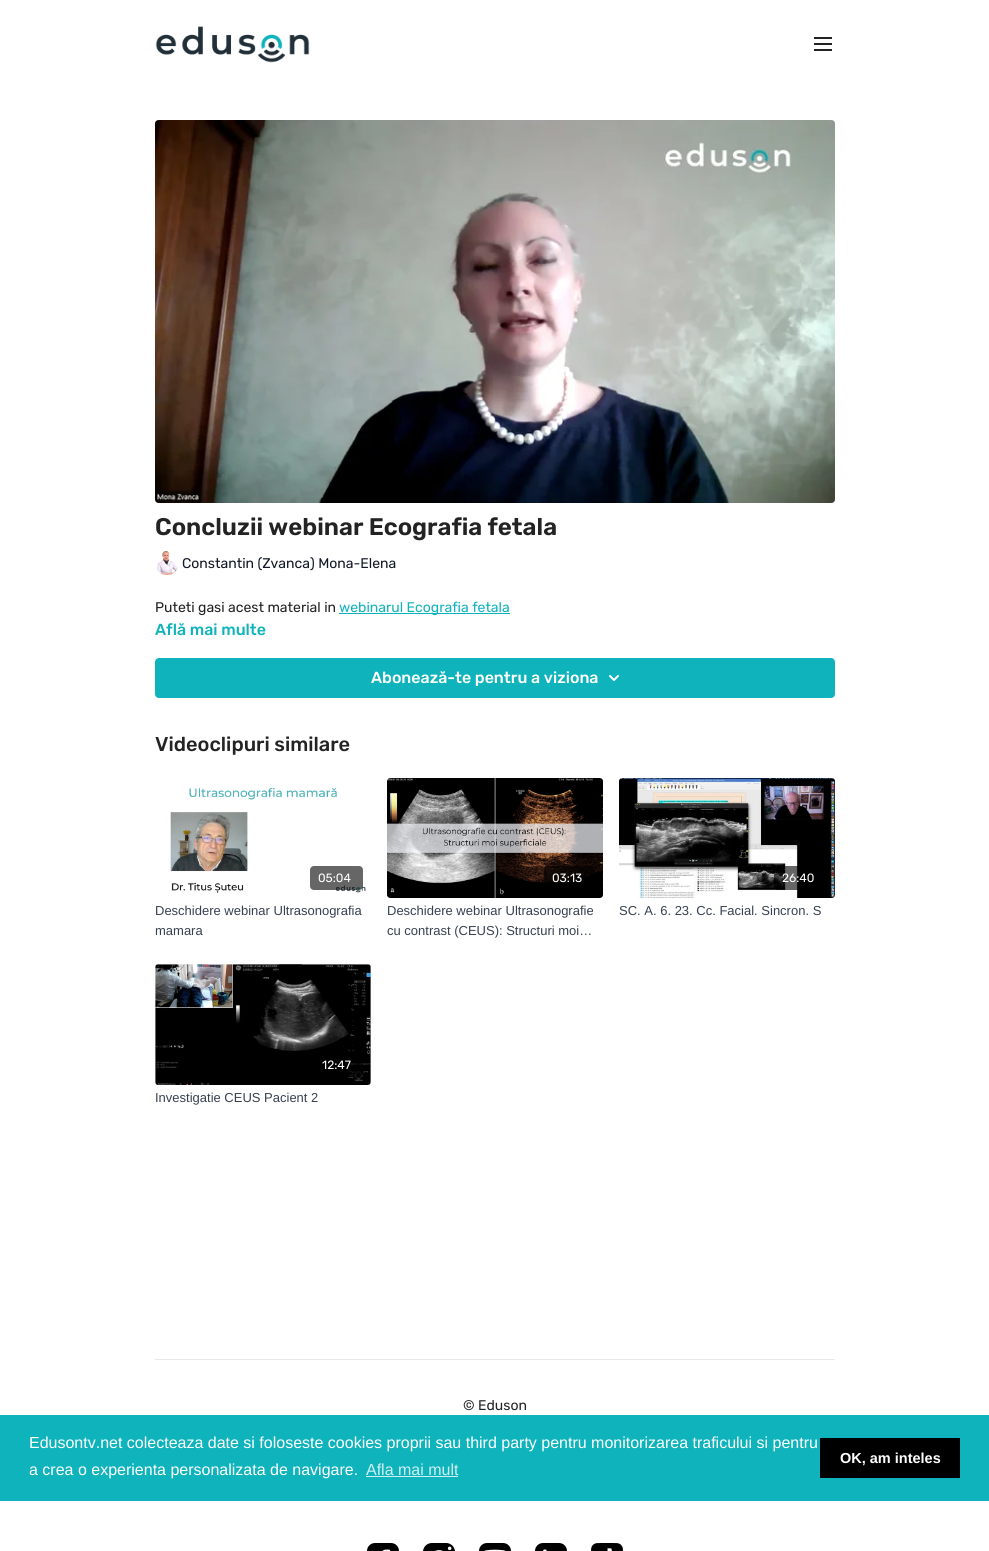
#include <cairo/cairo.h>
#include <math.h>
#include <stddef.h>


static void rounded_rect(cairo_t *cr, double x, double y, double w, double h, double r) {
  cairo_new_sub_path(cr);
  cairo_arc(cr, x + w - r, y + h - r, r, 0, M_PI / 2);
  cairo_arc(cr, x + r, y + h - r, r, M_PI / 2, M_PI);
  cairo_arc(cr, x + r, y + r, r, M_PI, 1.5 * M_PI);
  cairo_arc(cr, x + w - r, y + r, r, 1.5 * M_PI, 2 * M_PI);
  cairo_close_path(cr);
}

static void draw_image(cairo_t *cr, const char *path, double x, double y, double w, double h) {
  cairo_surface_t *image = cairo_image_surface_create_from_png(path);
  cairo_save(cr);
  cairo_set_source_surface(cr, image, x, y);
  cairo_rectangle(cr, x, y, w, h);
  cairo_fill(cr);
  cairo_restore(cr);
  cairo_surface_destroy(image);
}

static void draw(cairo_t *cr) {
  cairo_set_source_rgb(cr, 1, 1, 1);
  cairo_paint(cr);
  draw_image(cr, "images/1.png", 155, 26, 155, 37);
  draw_image(cr, "images/2.png", 814, 37, 18, 14);
  draw_image(cr, "images/3.png", 155, 120, 680, 383);
  draw_image(cr, "images/4.png", 157, 551, 21, 24);
  cairo_set_source_rgb(cr, 15 / 255.0, 179 / 255.0, 188 / 255.0);
  cairo_rectangle(cr, 339, 613, 171, 1);
  cairo_fill(cr);
  rounded_rect(cr, 155, 658, 680, 40, 4);
  cairo_fill(cr);
  draw_image(cr, "images/5.png", 609, 675, 10, 6);
  draw_image(cr, "images/6.png", 155, 778, 216, 120);
  cairo_set_source_rgba(cr, 0, 0, 0, 0.6);
  rounded_rect(cr, 310, 866, 53, 24, 4);
  cairo_fill(cr);
  draw_image(cr, "images/7.png", 387, 778, 216, 120);
  rounded_rect(cr, 544, 866, 51, 24, 4);
  cairo_fill(cr);
  draw_image(cr, "images/8.png", 619, 778, 216, 120);
  rounded_rect(cr, 774, 866, 53, 24, 4);
  cairo_fill(cr);
  draw_image(cr, "images/9.png", 155, 964, 216, 121);
  rounded_rect(cr, 314, 1053, 49, 24, 4);
  cairo_fill(cr);
  cairo_set_source_rgb(cr, 233 / 255.0, 233 / 255.0, 233 / 255.0);
  cairo_rectangle(cr, 155, 1359, 680, 1);
  cairo_fill(cr);
  draw_image(cr, "images/10.png", 367, 1543, 32, 8);
  draw_image(cr, "images/11.png", 423, 1543, 32, 8);
  draw_image(cr, "images/12.png", 479, 1543, 32, 8);
  draw_image(cr, "images/13.png", 535, 1543, 32, 8);
  draw_image(cr, "images/14.png", 591, 1543, 32, 8);
  cairo_set_source_rgb(cr, 15 / 255.0, 179 / 255.0, 188 / 255.0);
  cairo_rectangle(cr, 0, 1415, 989, 86);
  cairo_fill(cr);
  cairo_set_source_rgb(cr, 207 / 255.0, 240 / 255.0, 242 / 255.0);
  cairo_rectangle(cr, 366, 1476, 92, 1);
  cairo_fill(cr);
  cairo_set_source_rgb(cr, 0, 0, 0);
  cairo_rectangle(cr, 820, 1438, 140, 40);
  cairo_fill(cr);
  cairo_select_font_face(cr, "Rubik SemiBold", CAIRO_FONT_SLANT_NORMAL, CAIRO_FONT_WEIGHT_NORMAL);
  cairo_set_font_size(cr, 24);
  cairo_set_source_rgb(cr, 35 / 255.0, 35 / 255.0, 35 / 255.0);
  cairo_move_to(cr, 155, 535);
  cairo_show_text(cr, "Concluzii webinar Ecografia fetala");
  cairo_select_font_face(cr, "Rubik", CAIRO_FONT_SLANT_NORMAL, CAIRO_FONT_WEIGHT_NORMAL);
  cairo_set_font_size(cr, 14);
  cairo_set_source_rgb(cr, 17 / 255.0, 24 / 255.0, 39 / 255.0);
  cairo_move_to(cr, 182, 568);
  cairo_show_text(cr, "Constantin (Zvanca) Mona-Elena");
  cairo_set_source_rgb(cr, 35 / 255.0, 35 / 255.0, 35 / 255.0);
  cairo_move_to(cr, 155, 612);
  cairo_show_text(cr, "Puteti gasi acest material in");
  cairo_set_source_rgb(cr, 15 / 255.0, 179 / 255.0, 188 / 255.0);
  cairo_move_to(cr, 339, 612);
  cairo_show_text(cr, "webinarul Ecografia fetala");
  cairo_select_font_face(cr, "Rubik Medium", CAIRO_FONT_SLANT_NORMAL, CAIRO_FONT_WEIGHT_NORMAL);
  cairo_set_font_size(cr, 16);
  cairo_move_to(cr, 155, 635);
  cairo_show_text(cr, "Află mai multe");
  cairo_set_source_rgb(cr, 1, 1, 1);
  cairo_move_to(cr, 371, 683);
  cairo_show_text(cr, "Abonează-te pentru a viziona");
  cairo_set_font_size(cr, 20);
  cairo_set_source_rgb(cr, 35 / 255.0, 35 / 255.0, 35 / 255.0);
  cairo_move_to(cr, 155, 751);
  cairo_show_text(cr, "Videoclipuri similare");
  cairo_select_font_face(cr, "Rubik", CAIRO_FONT_SLANT_NORMAL, CAIRO_FONT_WEIGHT_NORMAL);
  cairo_set_font_size(cr, 12);
  cairo_set_source_rgb(cr, 1, 1, 1);
  cairo_move_to(cr, 318, 882);
  cairo_show_text(cr, "05:04");
  cairo_select_font_face(cr, "Liberation Sans", CAIRO_FONT_SLANT_NORMAL, CAIRO_FONT_WEIGHT_NORMAL);
  cairo_set_font_size(cr, 13);
  cairo_set_source_rgb(cr, 55 / 255.0, 65 / 255.0, 81 / 255.0);
  cairo_move_to(cr, 155, 915);
  cairo_show_text(cr, "Deschidere webinar Ultrasonografia");
  cairo_move_to(cr, 155, 935);
  cairo_show_text(cr, "mamara");
  cairo_select_font_face(cr, "Rubik", CAIRO_FONT_SLANT_NORMAL, CAIRO_FONT_WEIGHT_NORMAL);
  cairo_set_font_size(cr, 12);
  cairo_set_source_rgb(cr, 1, 1, 1);
  cairo_move_to(cr, 552, 882);
  cairo_show_text(cr, "03:13");
  cairo_select_font_face(cr, "Liberation Sans", CAIRO_FONT_SLANT_NORMAL, CAIRO_FONT_WEIGHT_NORMAL);
  cairo_set_font_size(cr, 13);
  cairo_set_source_rgb(cr, 55 / 255.0, 65 / 255.0, 81 / 255.0);
  cairo_move_to(cr, 387, 915);
  cairo_show_text(cr, "Deschidere webinar Ultrasonografie");
  cairo_move_to(cr, 387, 935);
  cairo_show_text(cr, "cu contrast (CEUS): Structuri moi…");
  cairo_select_font_face(cr, "Rubik", CAIRO_FONT_SLANT_NORMAL, CAIRO_FONT_WEIGHT_NORMAL);
  cairo_set_font_size(cr, 12);
  cairo_set_source_rgb(cr, 1, 1, 1);
  cairo_move_to(cr, 782, 882);
  cairo_show_text(cr, "26:40");
  cairo_select_font_face(cr, "Liberation Sans", CAIRO_FONT_SLANT_NORMAL, CAIRO_FONT_WEIGHT_NORMAL);
  cairo_set_font_size(cr, 13);
  cairo_set_source_rgb(cr, 55 / 255.0, 65 / 255.0, 81 / 255.0);
  cairo_move_to(cr, 619, 915);
  cairo_show_text(cr, "SC. A. 6. 23. Cc. Facial. Sincron. S");
  cairo_select_font_face(cr, "Rubik", CAIRO_FONT_SLANT_NORMAL, CAIRO_FONT_WEIGHT_NORMAL);
  cairo_set_font_size(cr, 12);
  cairo_set_source_rgb(cr, 1, 1, 1);
  cairo_move_to(cr, 322, 1069);
  cairo_show_text(cr, "12:47");
  cairo_select_font_face(cr, "Liberation Sans", CAIRO_FONT_SLANT_NORMAL, CAIRO_FONT_WEIGHT_NORMAL);
  cairo_set_font_size(cr, 13);
  cairo_set_source_rgb(cr, 55 / 255.0, 65 / 255.0, 81 / 255.0);
  cairo_move_to(cr, 155, 1102);
  cairo_show_text(cr, "Investigatie CEUS Pacient 2");
  cairo_select_font_face(cr, "Rubik", CAIRO_FONT_SLANT_NORMAL, CAIRO_FONT_WEIGHT_NORMAL);
  cairo_set_font_size(cr, 14);
  cairo_set_source_rgb(cr, 35 / 255.0, 35 / 255.0, 35 / 255.0);
  cairo_move_to(cr, 463, 1410);
  cairo_show_text(cr, "© Eduson");
  cairo_select_font_face(cr, "Liberation Sans", CAIRO_FONT_SLANT_NORMAL, CAIRO_FONT_WEIGHT_NORMAL);
  cairo_set_font_size(cr, 16);
  cairo_set_source_rgb(cr, 1, 1, 1);
  cairo_move_to(cr, 29, 1448);
  cairo_show_text(cr, "Edusontv.net colecteaza date si foloseste cookies proprii sau third party pentru monitorizarea traficului si pentru");
  cairo_move_to(cr, 29, 1475);
  cairo_show_text(cr, "a crea o experienta personalizata de navigare.");
  cairo_set_source_rgb(cr, 207 / 255.0, 240 / 255.0, 242 / 255.0);
  cairo_move_to(cr, 366, 1475);
  cairo_show_text(cr, "Afla mai mult");
  cairo_select_font_face(cr, "Liberation Sans", CAIRO_FONT_SLANT_NORMAL, CAIRO_FONT_WEIGHT_BOLD);
  cairo_set_font_size(cr, 14.5);
  cairo_set_source_rgb(cr, 1, 1, 1);
  cairo_move_to(cr, 840, 1463);
  cairo_show_text(cr, "OK, am inteles");
}

int main(void) {
  cairo_surface_t *surface = cairo_image_surface_create(CAIRO_FORMAT_RGB24, 989, 1551);
  cairo_t *cr = cairo_create(surface);
  cairo_font_options_t *options = cairo_font_options_create();
  cairo_font_options_set_hint_metrics(options, CAIRO_HINT_METRICS_OFF);
  cairo_font_options_set_hint_style(options, CAIRO_HINT_STYLE_NONE);
  cairo_set_font_options(cr, options);
  cairo_set_miter_limit(cr, 4);
  draw(cr);
  cairo_surface_write_to_png(surface, "out.png");
  cairo_font_options_destroy(options);
  cairo_destroy(cr);
  cairo_surface_destroy(surface);
  return 0;
}
